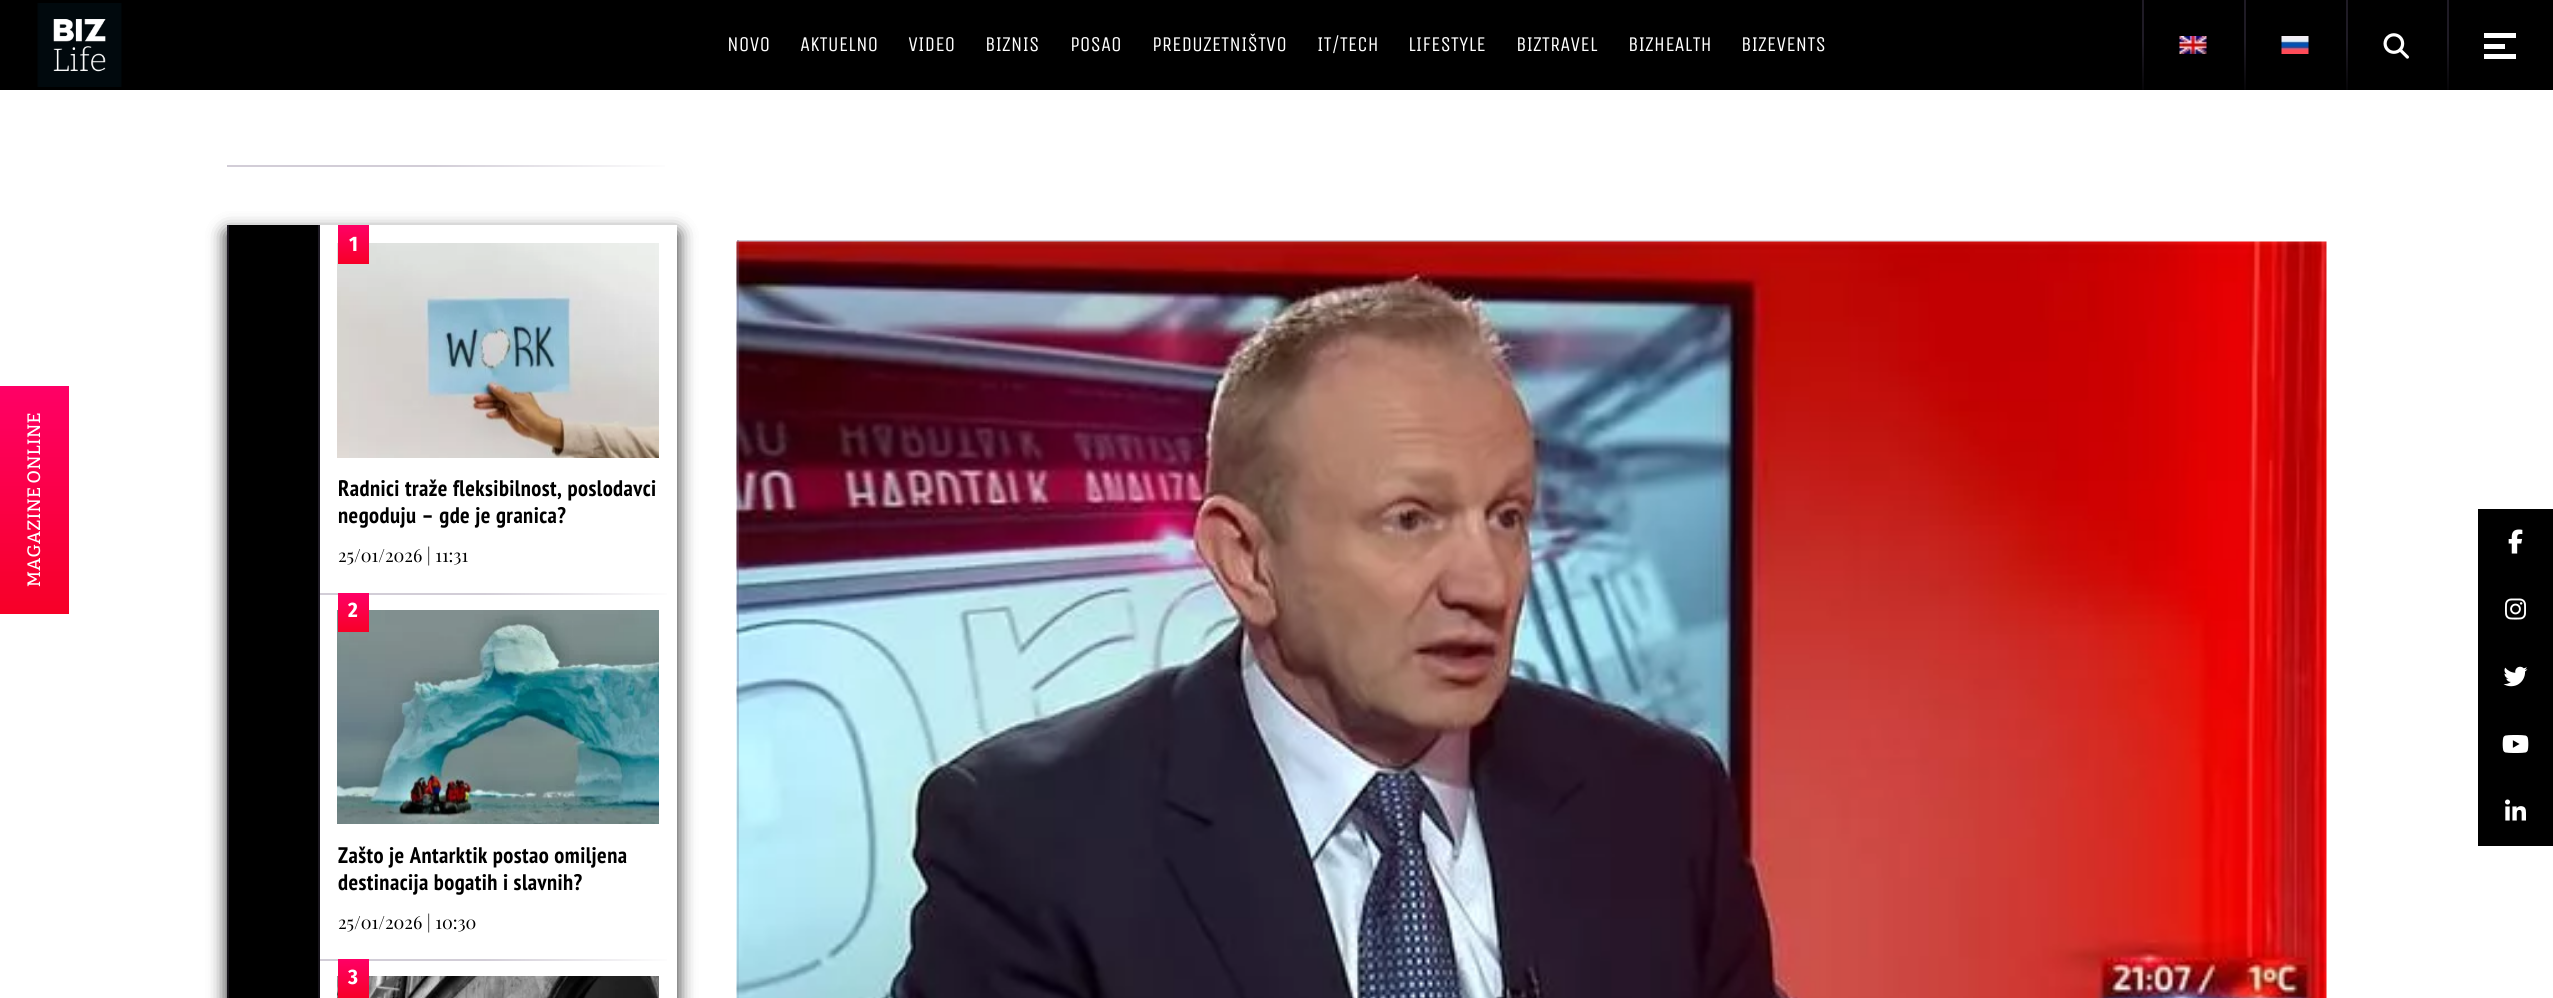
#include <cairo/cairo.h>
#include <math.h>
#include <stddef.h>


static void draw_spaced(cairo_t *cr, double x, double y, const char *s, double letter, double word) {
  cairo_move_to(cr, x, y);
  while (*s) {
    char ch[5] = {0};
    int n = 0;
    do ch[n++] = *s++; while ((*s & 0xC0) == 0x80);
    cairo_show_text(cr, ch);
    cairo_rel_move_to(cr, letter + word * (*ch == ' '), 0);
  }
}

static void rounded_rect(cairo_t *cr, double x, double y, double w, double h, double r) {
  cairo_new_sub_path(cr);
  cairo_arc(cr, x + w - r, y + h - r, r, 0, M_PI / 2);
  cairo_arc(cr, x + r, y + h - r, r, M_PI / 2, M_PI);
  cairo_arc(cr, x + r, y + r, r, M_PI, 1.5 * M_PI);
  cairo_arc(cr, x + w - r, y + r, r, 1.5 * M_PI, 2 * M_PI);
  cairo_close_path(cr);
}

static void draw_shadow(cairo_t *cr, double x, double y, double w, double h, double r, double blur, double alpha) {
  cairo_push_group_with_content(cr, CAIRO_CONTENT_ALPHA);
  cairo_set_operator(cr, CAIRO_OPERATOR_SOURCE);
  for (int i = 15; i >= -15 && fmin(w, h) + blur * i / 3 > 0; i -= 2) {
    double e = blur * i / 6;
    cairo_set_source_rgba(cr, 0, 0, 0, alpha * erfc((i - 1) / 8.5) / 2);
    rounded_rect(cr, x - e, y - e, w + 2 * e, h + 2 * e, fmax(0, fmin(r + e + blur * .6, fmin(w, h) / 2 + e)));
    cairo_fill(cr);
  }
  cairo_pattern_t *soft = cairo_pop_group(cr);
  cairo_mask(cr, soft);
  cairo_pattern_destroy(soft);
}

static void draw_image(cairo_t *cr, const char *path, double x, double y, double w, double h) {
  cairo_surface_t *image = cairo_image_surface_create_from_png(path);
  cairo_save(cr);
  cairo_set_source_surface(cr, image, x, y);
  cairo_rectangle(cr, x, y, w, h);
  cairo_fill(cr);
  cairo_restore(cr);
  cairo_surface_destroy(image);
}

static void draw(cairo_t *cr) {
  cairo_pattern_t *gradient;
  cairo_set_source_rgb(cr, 1, 1, 1);
  cairo_paint(cr);
  gradient = cairo_pattern_create_linear(-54, 386, -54, 614);
  cairo_pattern_add_color_stop_rgba(gradient, 0, 1, 0, 102 / 255.0, 1);
  cairo_pattern_add_color_stop_rgba(gradient, 1, 247 / 255.0, 0, 39 / 255.0, 1);
  cairo_set_source(cr, gradient);
  cairo_pattern_destroy(gradient);
  cairo_rectangle(cr, 0, 386, 69, 228);
  cairo_fill(cr);
  cairo_set_source_rgb(cr, 0, 0, 0);
  cairo_rectangle(cr, 0, 0, 2553, 90);
  cairo_fill(cr);
  draw_image(cr, "images/1.png", 37, 3, 85, 84);
  gradient = cairo_pattern_create_linear(2143, 0, 2143, 90);
  cairo_pattern_add_color_stop_rgba(gradient, 0, 31 / 255.0, 27 / 255.0, 37 / 255.0, 1);
  cairo_pattern_add_color_stop_rgba(gradient, 0.46, 31 / 255.0, 27 / 255.0, 37 / 255.0, 1);
  cairo_pattern_add_color_stop_rgba(gradient, 1, 6 / 255.0, 5 / 255.0, 7 / 255.0, 1);
  cairo_set_source(cr, gradient);
  cairo_pattern_destroy(gradient);
  cairo_rectangle(cr, 2142, 0, 2, 90);
  cairo_fill(cr);
  draw_image(cr, "images/2.png", 2179, 36, 28, 18);
  gradient = cairo_pattern_create_linear(2245, 0, 2245, 90);
  cairo_pattern_add_color_stop_rgba(gradient, 0, 31 / 255.0, 27 / 255.0, 37 / 255.0, 1);
  cairo_pattern_add_color_stop_rgba(gradient, 0.46, 31 / 255.0, 27 / 255.0, 37 / 255.0, 1);
  cairo_pattern_add_color_stop_rgba(gradient, 1, 6 / 255.0, 5 / 255.0, 7 / 255.0, 1);
  cairo_set_source(cr, gradient);
  cairo_pattern_destroy(gradient);
  cairo_rectangle(cr, 2244, 0, 2, 90);
  cairo_fill(cr);
  draw_image(cr, "images/3.png", 2281, 36, 28, 18);
  gradient = cairo_pattern_create_linear(2347, 0, 2347, 90);
  cairo_pattern_add_color_stop_rgba(gradient, 0, 31 / 255.0, 27 / 255.0, 37 / 255.0, 1);
  cairo_pattern_add_color_stop_rgba(gradient, 0.46, 31 / 255.0, 27 / 255.0, 37 / 255.0, 1);
  cairo_pattern_add_color_stop_rgba(gradient, 1, 6 / 255.0, 5 / 255.0, 7 / 255.0, 1);
  cairo_set_source(cr, gradient);
  cairo_pattern_destroy(gradient);
  cairo_rectangle(cr, 2346, 0, 2, 90);
  cairo_fill(cr);
  draw_image(cr, "images/4.png", 2383, 33, 26, 26);
  gradient = cairo_pattern_create_linear(2447, 0, 2447, 90);
  cairo_pattern_add_color_stop_rgba(gradient, 0, 31 / 255.0, 27 / 255.0, 37 / 255.0, 1);
  cairo_pattern_add_color_stop_rgba(gradient, 0.46, 31 / 255.0, 27 / 255.0, 37 / 255.0, 1);
  cairo_pattern_add_color_stop_rgba(gradient, 1, 6 / 255.0, 5 / 255.0, 7 / 255.0, 1);
  cairo_set_source(cr, gradient);
  cairo_pattern_destroy(gradient);
  cairo_rectangle(cr, 2447, 0, 2, 90);
  cairo_fill(cr);
  cairo_set_source_rgb(cr, 1, 1, 1);
  cairo_rectangle(cr, 2484, 33, 32, 5);
  cairo_fill(cr);
  cairo_rectangle(cr, 2484, 44, 21, 5);
  cairo_fill(cr);
  cairo_rectangle(cr, 2484, 54, 32, 5);
  cairo_fill(cr);
  gradient = cairo_pattern_create_linear(227, 166, 677, 166);
  cairo_pattern_add_color_stop_rgba(gradient, 0, 210 / 255.0, 205 / 255.0, 215 / 255.0, 1);
  cairo_pattern_add_color_stop_rgba(gradient, 0.46, 210 / 255.0, 205 / 255.0, 215 / 255.0, 1);
  cairo_pattern_add_color_stop_rgba(gradient, 1, 1, 1, 1, 1);
  cairo_set_source(cr, gradient);
  cairo_pattern_destroy(gradient);
  cairo_rectangle(cr, 227, 165, 438, 2);
  cairo_fill(cr);
  cairo_set_source_rgb(cr, 0, 0, 0);
  draw_shadow(cr, 227, 233, 450, 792, 0, 9, 0.5);
  draw_shadow(cr, 227, 233, 450, 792, 0, 9, 0.5);
  gradient = cairo_pattern_create_linear(227, 225, 227, 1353);
  cairo_pattern_add_color_stop_rgba(gradient, 0, 31 / 255.0, 27 / 255.0, 37 / 255.0, 1);
  cairo_pattern_add_color_stop_rgba(gradient, 0.46, 31 / 255.0, 27 / 255.0, 37 / 255.0, 1);
  cairo_pattern_add_color_stop_rgba(gradient, 1, 6 / 255.0, 5 / 255.0, 7 / 255.0, 1);
  cairo_set_source(cr, gradient);
  cairo_pattern_destroy(gradient);
  cairo_rectangle(cr, 227, 225, 2, 773);
  cairo_fill(cr);
  cairo_set_source_rgb(cr, 1, 1, 1);
  cairo_rectangle(cr, 320, 225, 357, 773);
  cairo_fill(cr);
  cairo_set_source_rgb(cr, 0, 0, 0);
  cairo_rectangle(cr, 229, 225, 89, 773);
  cairo_fill(cr);
  gradient = cairo_pattern_create_linear(319, 225, 319, 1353);
  cairo_pattern_add_color_stop_rgba(gradient, 0, 31 / 255.0, 27 / 255.0, 37 / 255.0, 1);
  cairo_pattern_add_color_stop_rgba(gradient, 0.46, 31 / 255.0, 27 / 255.0, 37 / 255.0, 1);
  cairo_pattern_add_color_stop_rgba(gradient, 1, 6 / 255.0, 5 / 255.0, 7 / 255.0, 1);
  cairo_set_source(cr, gradient);
  cairo_pattern_destroy(gradient);
  cairo_rectangle(cr, 318, 225, 2, 773);
  cairo_fill(cr);
  draw_image(cr, "images/5.png", 337, 243, 322, 215);
  gradient = cairo_pattern_create_linear(353, 225, 353, 264);
  cairo_pattern_add_color_stop_rgba(gradient, 0, 1, 0, 102 / 255.0, 1);
  cairo_pattern_add_color_stop_rgba(gradient, 1, 247 / 255.0, 0, 39 / 255.0, 1);
  cairo_set_source(cr, gradient);
  cairo_pattern_destroy(gradient);
  cairo_rectangle(cr, 338, 225, 31, 39);
  cairo_fill(cr);
  gradient = cairo_pattern_create_linear(320, 593, 677, 593);
  cairo_pattern_add_color_stop_rgba(gradient, 0, 210 / 255.0, 205 / 255.0, 215 / 255.0, 1);
  cairo_pattern_add_color_stop_rgba(gradient, 0.46, 210 / 255.0, 205 / 255.0, 215 / 255.0, 1);
  cairo_pattern_add_color_stop_rgba(gradient, 1, 1, 1, 1, 1);
  cairo_set_source(cr, gradient);
  cairo_pattern_destroy(gradient);
  cairo_rectangle(cr, 320, 593, 347, 2);
  cairo_fill(cr);
  draw_image(cr, "images/6.png", 337, 610, 322, 214);
  gradient = cairo_pattern_create_linear(353, 593, 353, 632);
  cairo_pattern_add_color_stop_rgba(gradient, 0, 1, 0, 102 / 255.0, 1);
  cairo_pattern_add_color_stop_rgba(gradient, 1, 247 / 255.0, 0, 39 / 255.0, 1);
  cairo_set_source(cr, gradient);
  cairo_pattern_destroy(gradient);
  cairo_rectangle(cr, 338, 593, 31, 39);
  cairo_fill(cr);
  gradient = cairo_pattern_create_linear(320, 959, 677, 959);
  cairo_pattern_add_color_stop_rgba(gradient, 0, 210 / 255.0, 205 / 255.0, 215 / 255.0, 1);
  cairo_pattern_add_color_stop_rgba(gradient, 0.46, 210 / 255.0, 205 / 255.0, 215 / 255.0, 1);
  cairo_pattern_add_color_stop_rgba(gradient, 1, 1, 1, 1, 1);
  cairo_set_source(cr, gradient);
  cairo_pattern_destroy(gradient);
  cairo_rectangle(cr, 320, 959, 347, 2);
  cairo_fill(cr);
  draw_image(cr, "images/7.png", 337, 976, 322, 22);
  gradient = cairo_pattern_create_linear(353, 959, 353, 998);
  cairo_pattern_add_color_stop_rgba(gradient, 0, 1, 0, 102 / 255.0, 1);
  cairo_pattern_add_color_stop_rgba(gradient, 1, 247 / 255.0, 0, 39 / 255.0, 1);
  cairo_set_source(cr, gradient);
  cairo_pattern_destroy(gradient);
  cairo_rectangle(cr, 338, 959, 31, 39);
  cairo_fill(cr);
  gradient = cairo_pattern_create_linear(737, 241, 2327, 241);
  cairo_pattern_add_color_stop_rgba(gradient, 0, 210 / 255.0, 205 / 255.0, 215 / 255.0, 1);
  cairo_pattern_add_color_stop_rgba(gradient, 0.46, 210 / 255.0, 205 / 255.0, 215 / 255.0, 1);
  cairo_pattern_add_color_stop_rgba(gradient, 1, 1, 1, 1, 1);
  cairo_set_source(cr, gradient);
  cairo_pattern_destroy(gradient);
  cairo_rectangle(cr, 737, 240, 1547, 2);
  cairo_fill(cr);
  draw_image(cr, "images/8.png", 736, 241, 1591, 757);
  gradient = cairo_pattern_create_linear(737, 240, 737, 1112);
  cairo_pattern_add_color_stop_rgba(gradient, 0, 104 / 255.0, 89 / 255.0, 122 / 255.0, 0.3);
  cairo_pattern_add_color_stop_rgba(gradient, 0.46, 104 / 255.0, 89 / 255.0, 122 / 255.0, 0.3);
  cairo_pattern_add_color_stop_rgba(gradient, 1, 104 / 255.0, 89 / 255.0, 122 / 255.0, 0.06);
  cairo_set_source(cr, gradient);
  cairo_pattern_destroy(gradient);
  cairo_rectangle(cr, 737, 240, 2, 758);
  cairo_fill(cr);
  cairo_set_source_rgb(cr, 0, 0, 0);
  cairo_rectangle(cr, 2478, 509, 75, 337);
  cairo_fill(cr);
  draw_image(cr, "images/9.png", 2508, 529, 15, 25);
  draw_image(cr, "images/10.png", 2505, 598, 21, 22);
  draw_image(cr, "images/11.png", 2503, 666, 25, 21);
  draw_image(cr, "images/12.png", 2502, 735, 27, 18);
  draw_image(cr, "images/13.png", 2505, 799, 21, 22);
  cairo_select_font_face(cr, "Bitter Medium", CAIRO_FONT_SLANT_NORMAL, CAIRO_FONT_WEIGHT_NORMAL);
  cairo_set_font_size(cr, 18);
  cairo_set_source_rgb(cr, 1, 1, 1);
  cairo_save(cr);
  cairo_translate(cr, 40, 587);
  cairo_rotate(cr, -90 * M_PI / 180);
  draw_spaced(cr, 0, 0, "MAGAZINE ONLINE", 0.4, -1);
  cairo_restore(cr);
  cairo_select_font_face(cr, "Unica One", CAIRO_FONT_SLANT_NORMAL, CAIRO_FONT_WEIGHT_NORMAL);
  cairo_set_font_size(cr, 21);
  cairo_move_to(cr, 727, 51);
  cairo_show_text(cr, "NOVO");
  cairo_move_to(cr, 800, 51);
  cairo_show_text(cr, "AKTUELNO");
  cairo_move_to(cr, 908, 51);
  cairo_show_text(cr, "VIDEO");
  cairo_move_to(cr, 985, 51);
  cairo_show_text(cr, "BIZNIS");
  cairo_move_to(cr, 1070, 51);
  cairo_show_text(cr, "POSAO");
  cairo_move_to(cr, 1152, 51);
  cairo_show_text(cr, "PREDUZETNIŠTVO");
  cairo_move_to(cr, 1317, 51);
  cairo_show_text(cr, "IT/TECH");
  cairo_move_to(cr, 1408, 51);
  cairo_show_text(cr, "LIFESTYLE");
  cairo_move_to(cr, 1516, 51);
  cairo_show_text(cr, "BIZTRAVEL");
  cairo_move_to(cr, 1628, 51);
  cairo_show_text(cr, "BIZHEALTH");
  cairo_move_to(cr, 1741, 51);
  cairo_show_text(cr, "BIZEVENTS");
  cairo_select_font_face(cr, "Fira Sans Condensed", CAIRO_FONT_SLANT_NORMAL, CAIRO_FONT_WEIGHT_BOLD);
  cairo_move_to(cr, 349, 251);
  cairo_show_text(cr, "1");
  cairo_select_font_face(cr, "PT Sans Narrow", CAIRO_FONT_SLANT_NORMAL, CAIRO_FONT_WEIGHT_BOLD);
  cairo_set_font_size(cr, 22.5);
  cairo_set_source_rgb(cr, 0, 0, 0);
  draw_spaced(cr, 338, 496, "Radnici traže fleksibilnost, poslodavci", 0.45, 0);
  draw_spaced(cr, 338, 523, "negoduju – gde je granica?", 0.45, 0);
  cairo_select_font_face(cr, "Playfair Display", CAIRO_FONT_SLANT_NORMAL, CAIRO_FONT_WEIGHT_NORMAL);
  cairo_set_font_size(cr, 18);
  cairo_move_to(cr, 338, 562);
  cairo_show_text(cr, "25/01/2026 | 11:31");
  cairo_select_font_face(cr, "Fira Sans Condensed", CAIRO_FONT_SLANT_NORMAL, CAIRO_FONT_WEIGHT_BOLD);
  cairo_set_font_size(cr, 21);
  cairo_set_source_rgb(cr, 1, 1, 1);
  cairo_move_to(cr, 348, 617);
  cairo_show_text(cr, "2");
  cairo_select_font_face(cr, "PT Sans Narrow", CAIRO_FONT_SLANT_NORMAL, CAIRO_FONT_WEIGHT_BOLD);
  cairo_set_font_size(cr, 22.5);
  cairo_set_source_rgb(cr, 0, 0, 0);
  draw_spaced(cr, 338, 863, "Zašto je Antarktik postao omiljena", 0.45, 0);
  draw_spaced(cr, 338, 890, "destinacija bogatih i slavnih?", 0.45, 0);
  cairo_select_font_face(cr, "Playfair Display", CAIRO_FONT_SLANT_NORMAL, CAIRO_FONT_WEIGHT_NORMAL);
  cairo_set_font_size(cr, 18);
  cairo_move_to(cr, 338, 929);
  cairo_show_text(cr, "25/01/2026 | 10:30");
  cairo_select_font_face(cr, "Fira Sans Condensed", CAIRO_FONT_SLANT_NORMAL, CAIRO_FONT_WEIGHT_BOLD);
  cairo_set_font_size(cr, 21);
  cairo_set_source_rgb(cr, 1, 1, 1);
  cairo_move_to(cr, 348, 984);
  cairo_show_text(cr, "3");
}

int main(void) {
  cairo_surface_t *surface = cairo_image_surface_create(CAIRO_FORMAT_RGB24, 2553, 998);
  cairo_t *cr = cairo_create(surface);
  cairo_font_options_t *options = cairo_font_options_create();
  cairo_font_options_set_hint_metrics(options, CAIRO_HINT_METRICS_OFF);
  cairo_font_options_set_hint_style(options, CAIRO_HINT_STYLE_NONE);
  cairo_set_font_options(cr, options);
  cairo_set_miter_limit(cr, 4);
  draw(cr);
  cairo_surface_write_to_png(surface, "out.png");
  cairo_font_options_destroy(options);
  cairo_destroy(cr);
  cairo_surface_destroy(surface);
  return 0;
}
